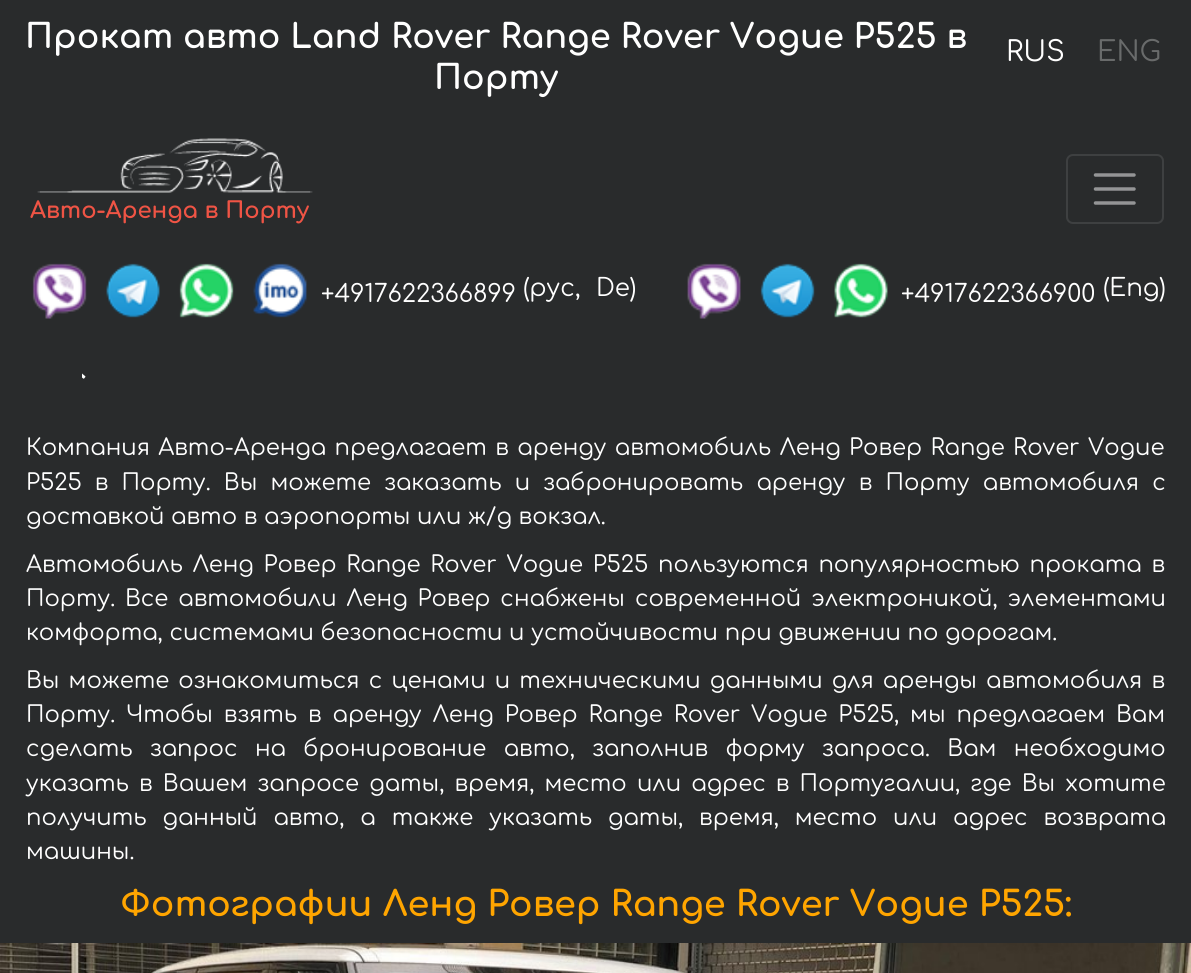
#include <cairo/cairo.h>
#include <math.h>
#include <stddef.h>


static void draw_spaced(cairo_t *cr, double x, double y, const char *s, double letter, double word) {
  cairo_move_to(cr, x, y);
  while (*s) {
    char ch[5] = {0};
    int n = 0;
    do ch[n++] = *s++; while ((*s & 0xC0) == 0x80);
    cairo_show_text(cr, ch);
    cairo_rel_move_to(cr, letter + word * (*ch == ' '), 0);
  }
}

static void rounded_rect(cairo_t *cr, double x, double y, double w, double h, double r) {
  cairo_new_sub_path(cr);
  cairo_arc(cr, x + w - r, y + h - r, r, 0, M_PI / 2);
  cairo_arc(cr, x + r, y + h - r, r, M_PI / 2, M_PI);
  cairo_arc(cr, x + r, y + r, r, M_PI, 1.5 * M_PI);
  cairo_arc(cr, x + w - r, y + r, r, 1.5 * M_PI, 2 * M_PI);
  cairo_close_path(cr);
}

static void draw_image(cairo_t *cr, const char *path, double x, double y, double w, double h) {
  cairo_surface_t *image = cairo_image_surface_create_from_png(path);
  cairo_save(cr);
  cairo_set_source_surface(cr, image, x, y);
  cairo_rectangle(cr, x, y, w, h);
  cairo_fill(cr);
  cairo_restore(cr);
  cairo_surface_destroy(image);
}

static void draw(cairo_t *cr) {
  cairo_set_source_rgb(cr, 41 / 255.0, 43 / 255.0, 44 / 255.0);
  cairo_paint(cr);
  draw_image(cr, "images/1.png", 37, 138, 276, 55);
  rounded_rect(cr, 1067, 155, 96, 68, 6);
  cairo_set_source_rgb(cr, 62 / 255.0, 64 / 255.0, 65 / 255.0);
  cairo_stroke(cr);
  cairo_new_path(cr);
  cairo_move_to(cr, 1095.5, 175);
  cairo_line_to(cr, 1134, 175);
  cairo_move_to(cr, 1095.5, 189);
  cairo_line_to(cr, 1134, 189);
  cairo_move_to(cr, 1095.5, 203);
  cairo_line_to(cr, 1134, 203);
  cairo_set_source_rgb(cr, 148 / 255.0, 149 / 255.0, 150 / 255.0);
  cairo_set_line_width(cr, 3.5);
  cairo_set_line_cap(cr, CAIRO_LINE_CAP_ROUND);
  cairo_stroke(cr);
  draw_image(cr, "images/2.png", 32, 263, 55, 56);
  draw_image(cr, "images/3.png", 106, 263, 54, 55);
  draw_image(cr, "images/4.png", 179, 263, 55, 55);
  draw_image(cr, "images/5.png", 253, 263, 54, 55);
  draw_image(cr, "images/6.png", 687, 263, 54, 56);
  draw_image(cr, "images/7.png", 760, 263, 55, 55);
  draw_image(cr, "images/8.png", 834, 263, 54, 55);
  draw_image(cr, "images/9.png", 82, 373, 4, 6);
  draw_image(cr, "images/10.png", 0, 943, 1191, 30);
  cairo_select_font_face(cr, "Comfortaa", CAIRO_FONT_SLANT_NORMAL, CAIRO_FONT_WEIGHT_BOLD);
  cairo_set_font_size(cr, 33.6);
  cairo_set_source_rgb(cr, 1, 1, 1);
  cairo_move_to(cr, 25, 48);
  cairo_show_text(cr, "Прокат авто Land Rover Range Rover Vogue P525 в");
  cairo_move_to(cr, 434, 89);
  cairo_show_text(cr, "Порту");
  cairo_select_font_face(cr, "Comfortaa", CAIRO_FONT_SLANT_NORMAL, CAIRO_FONT_WEIGHT_NORMAL);
  cairo_set_font_size(cr, 28);
  cairo_move_to(cr, 1006, 61);
  cairo_show_text(cr, "RUS");
  cairo_set_source_rgb(cr, 105 / 255.0, 107 / 255.0, 107 / 255.0);
  cairo_move_to(cr, 1097, 61);
  cairo_show_text(cr, "ENG");
  cairo_select_font_face(cr, "Comfortaa", CAIRO_FONT_SLANT_NORMAL, CAIRO_FONT_WEIGHT_BOLD);
  cairo_set_font_size(cr, 22.75);
  cairo_set_source_rgb(cr, 239 / 255.0, 84 / 255.0, 69 / 255.0);
  cairo_move_to(cr, 30, 218);
  cairo_show_text(cr, "Авто-Аренда в Порту");
  cairo_select_font_face(cr, "Comfortaa", CAIRO_FONT_SLANT_NORMAL, CAIRO_FONT_WEIGHT_NORMAL);
  cairo_set_font_size(cr, 24.5);
  cairo_set_source_rgb(cr, 1, 1, 1);
  cairo_move_to(cr, 321, 302);
  cairo_show_text(cr, "+4917622366899");
  cairo_move_to(cr, 523, 296);
  cairo_show_text(cr, "(рус,");
  cairo_move_to(cr, 596, 296);
  cairo_show_text(cr, "De)");
  cairo_move_to(cr, 901, 302);
  cairo_show_text(cr, "+4917622366900");
  cairo_move_to(cr, 1103, 296);
  cairo_show_text(cr, "(Eng)");
  cairo_set_font_size(cr, 22.75);
  draw_spaced(cr, 26, 455, "Компания Авто-Аренда предлагает в аренду автомобиль Ленд Ровер Range Rover Vogue", 0, 1.75);
  draw_spaced(cr, 26, 490, "P525 в Порту. Вы можете заказать и забронировать аренду в Порту автомобиля с", 0, 6.5);
  cairo_move_to(cr, 26, 524);
  cairo_show_text(cr, "доставкой авто в аэропорты или ж/д вокзал.");
  draw_spaced(cr, 26, 572, "Автомобиль Ленд Ровер Range Rover Vogue P525 пользуются популярностью проката в", 0, 3.1);
  draw_spaced(cr, 26, 606, "Порту. Все автомобили Ленд Ровер снабжены современной электроникой, элементами", 0, 3.25);
  cairo_move_to(cr, 26, 640);
  cairo_show_text(cr, "комфорта, системами безопасности и устойчивости при движении по дорогам.");
  draw_spaced(cr, 26, 688, "Вы можете ознакомиться с ценами и техническими данными для аренды автомобиля в", 0, 2.5);
  draw_spaced(cr, 26, 722, "Порту. Чтобы взять в аренду Ленд Ровер Range Rover Vogue P525, мы предлагаем Вам", 0, 4.25);
  draw_spaced(cr, 26, 756, "сделать запрос на бронирование авто, заполнив форму запроса. Вам необходимо", 0, 10.75);
  draw_spaced(cr, 26, 791, "указать в Вашем запросе даты, время, место или адрес в Португалии, где Вы хотите", 0, 3.5);
  draw_spaced(cr, 26, 825, "получить данный авто, а также указать даты, время, место или адрес возврата", 0, 9.25);
  cairo_move_to(cr, 26, 859);
  cairo_show_text(cr, "машины.");
  cairo_select_font_face(cr, "Comfortaa", CAIRO_FONT_SLANT_NORMAL, CAIRO_FONT_WEIGHT_BOLD);
  cairo_set_font_size(cr, 35);
  cairo_set_source_rgb(cr, 1, 165 / 255.0, 0);
  cairo_move_to(cr, 120, 916);
  cairo_show_text(cr, "Фотографии Ленд Ровер Range Rover Vogue P525:");
}

int main(void) {
  cairo_surface_t *surface = cairo_image_surface_create(CAIRO_FORMAT_RGB24, 1191, 973);
  cairo_t *cr = cairo_create(surface);
  cairo_font_options_t *options = cairo_font_options_create();
  cairo_font_options_set_hint_metrics(options, CAIRO_HINT_METRICS_OFF);
  cairo_font_options_set_hint_style(options, CAIRO_HINT_STYLE_NONE);
  cairo_set_font_options(cr, options);
  cairo_set_miter_limit(cr, 4);
  draw(cr);
  cairo_surface_write_to_png(surface, "out.png");
  cairo_font_options_destroy(options);
  cairo_destroy(cr);
  cairo_surface_destroy(surface);
  return 0;
}
